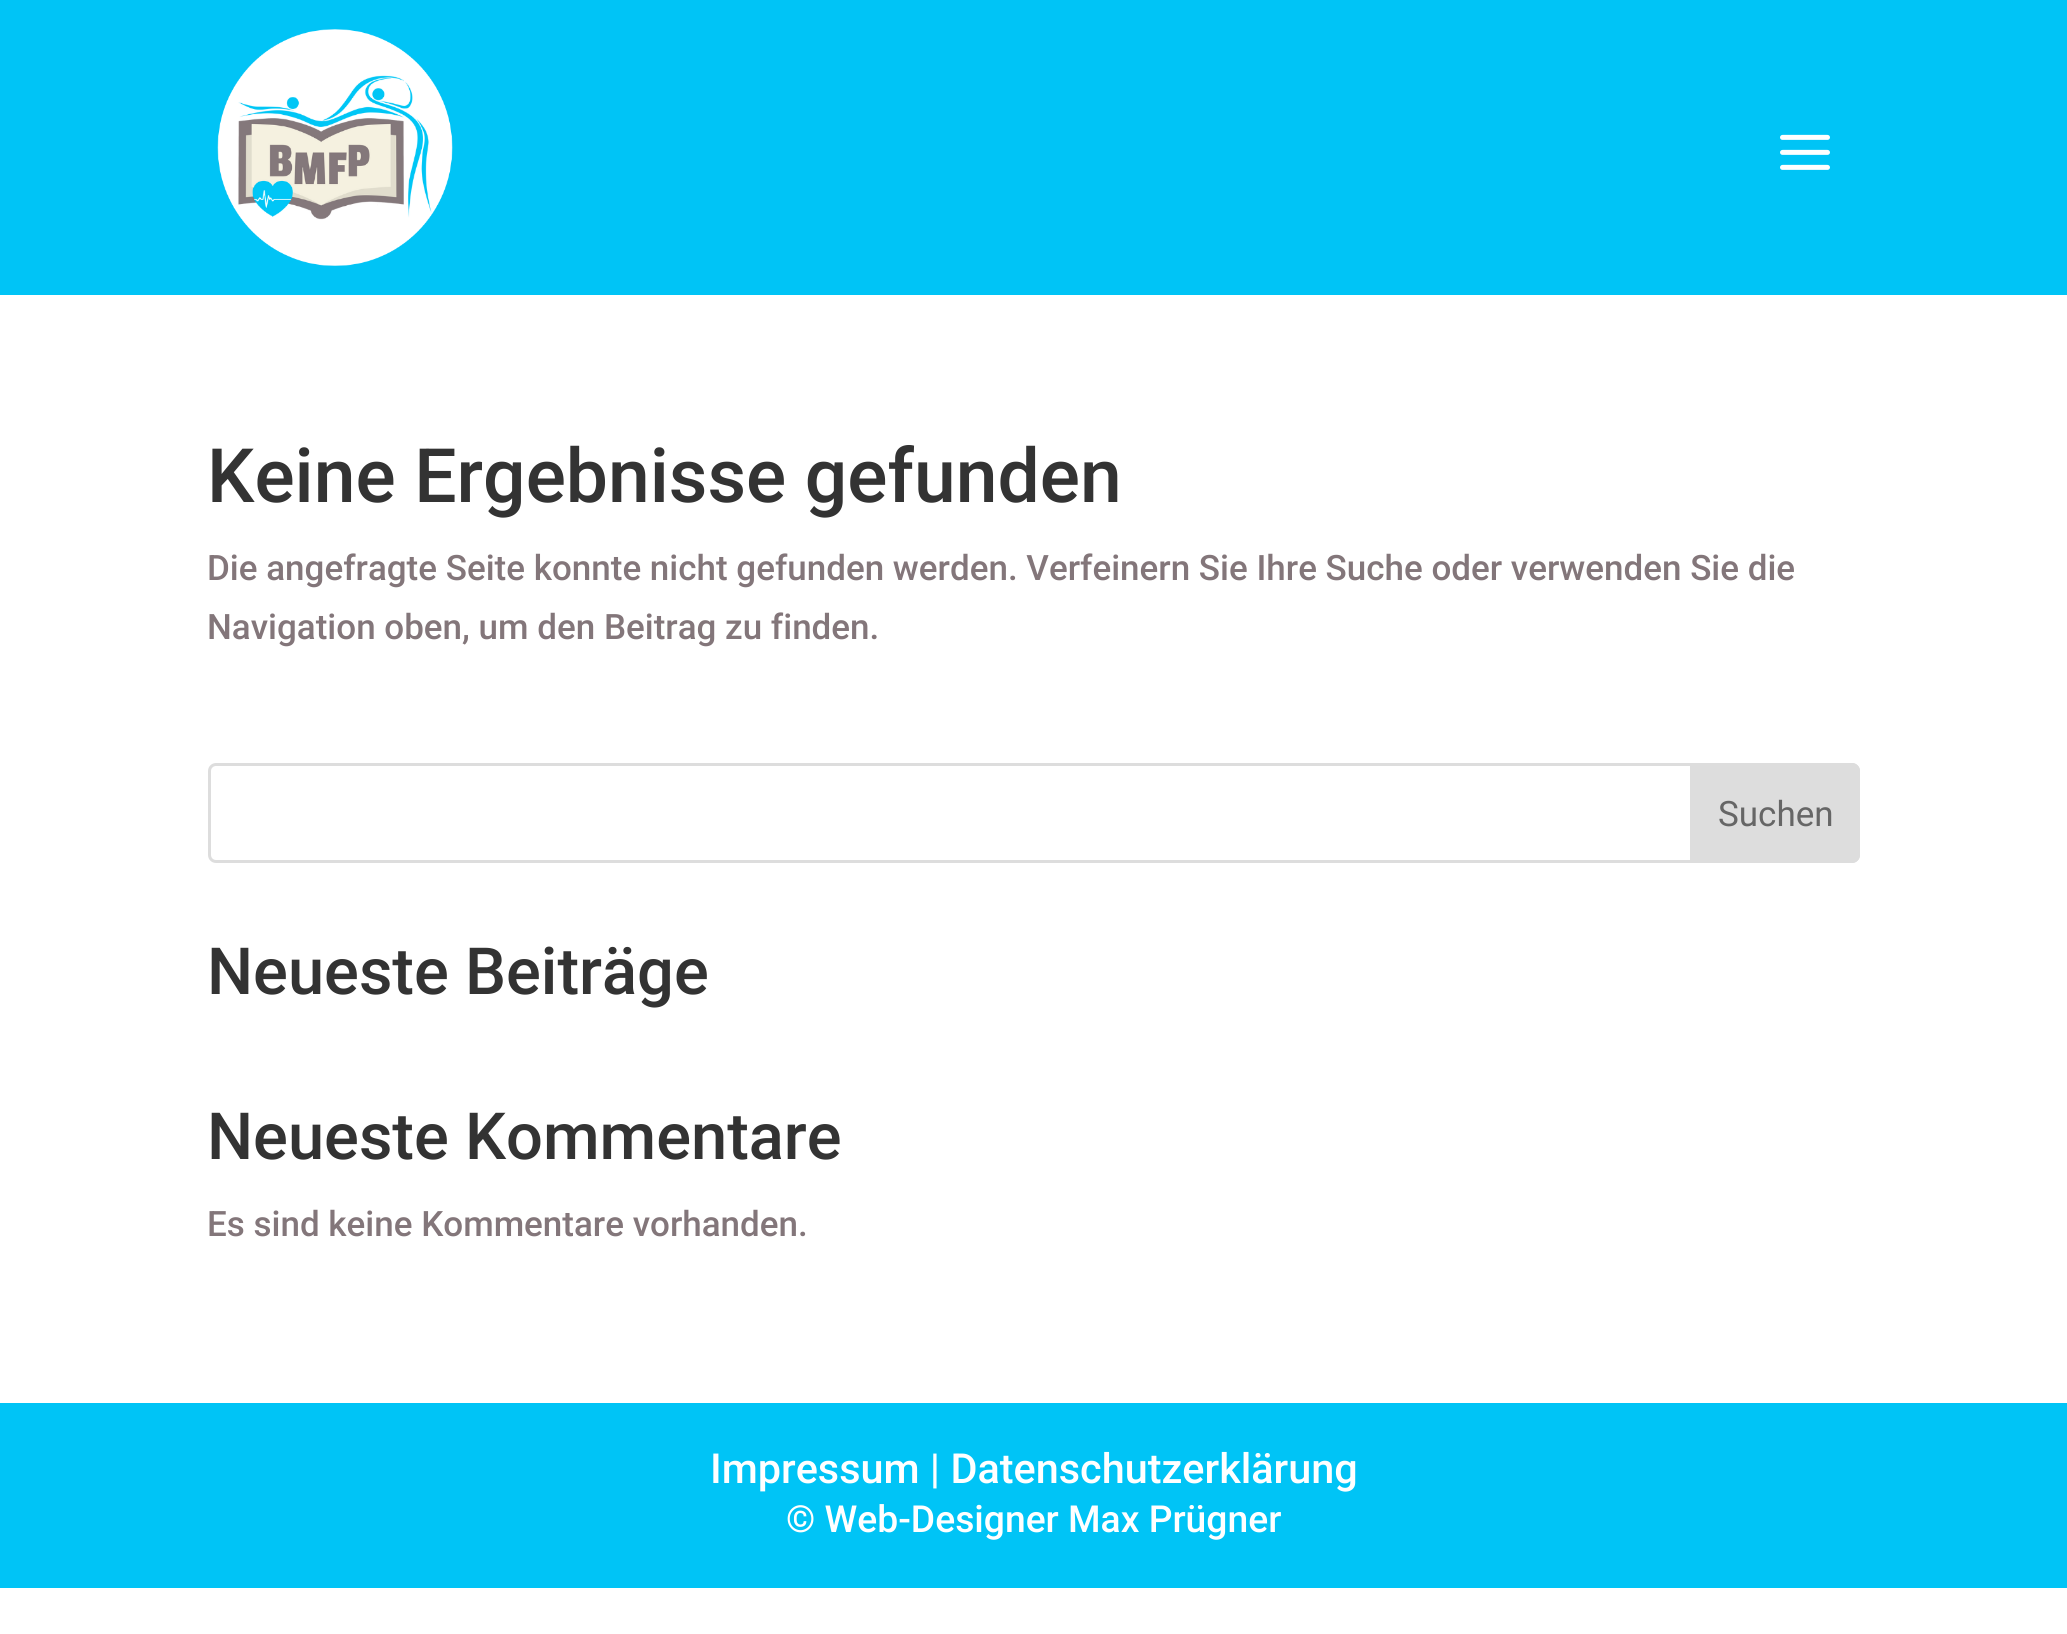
#include <cairo/cairo.h>
#include <math.h>
#include <stddef.h>


static void rounded_rect(cairo_t *cr, double x, double y, double w, double h, double r) {
  cairo_new_sub_path(cr);
  cairo_arc(cr, x + w - r, y + h - r, r, 0, M_PI / 2);
  cairo_arc(cr, x + r, y + h - r, r, M_PI / 2, M_PI);
  cairo_arc(cr, x + r, y + r, r, M_PI, 1.5 * M_PI);
  cairo_arc(cr, x + w - r, y + r, r, 1.5 * M_PI, 2 * M_PI);
  cairo_close_path(cr);
}

static void draw_image(cairo_t *cr, const char *path, double x, double y, double w, double h) {
  cairo_surface_t *image = cairo_image_surface_create_from_png(path);
  cairo_save(cr);
  cairo_set_source_surface(cr, image, x, y);
  cairo_rectangle(cr, x, y, w, h);
  cairo_fill(cr);
  cairo_restore(cr);
  cairo_surface_destroy(image);
}

static void draw(cairo_t *cr) {
  cairo_set_source_rgb(cr, 1, 1, 1);
  cairo_paint(cr);
  cairo_set_source_rgb(cr, 0, 196 / 255.0, 246 / 255.0);
  cairo_rectangle(cr, 0, 0, 2067, 295);
  cairo_fill(cr);
  draw_image(cr, "images/1.png", 217, 29, 236, 237);
  draw_image(cr, "images/2.png", 1780, 134, 50, 36);
  rounded_rect(cr, 209.5, 764.5, 1649, 97, 6.5);
  cairo_set_source_rgb(cr, 221 / 255.0, 221 / 255.0, 221 / 255.0);
  cairo_set_line_width(cr, 3);
  cairo_stroke(cr);
  cairo_new_path(cr);
  cairo_move_to(cr, 1691.5, 764.5);
  cairo_line_to(cr, 1852, 764.5);
  cairo_curve_to(cr, 1855.5, 764.5, 1858.5, 767.5, 1858.5, 771);
  cairo_line_to(cr, 1858.5, 855);
  cairo_curve_to(cr, 1858.5, 858.5, 1855.5, 861.5, 1852, 861.5);
  cairo_line_to(cr, 1691.5, 861.5);
  cairo_close_path(cr);
  cairo_fill_preserve(cr);
  cairo_stroke(cr);
  cairo_set_source_rgb(cr, 0, 196 / 255.0, 246 / 255.0);
  cairo_rectangle(cr, 0, 1403, 2067, 185);
  cairo_fill(cr);
  cairo_select_font_face(cr, "Roboto Medium", CAIRO_FONT_SLANT_NORMAL, CAIRO_FONT_WEIGHT_NORMAL);
  cairo_set_font_size(cr, 75);
  cairo_set_source_rgb(cr, 51 / 255.0, 51 / 255.0, 51 / 255.0);
  cairo_move_to(cr, 207, 502);
  cairo_show_text(cr, "Keine Ergebnisse gefunden");
  cairo_set_font_size(cr, 35);
  cairo_set_source_rgb(cr, 131 / 255.0, 118 / 255.0, 122 / 255.0);
  cairo_move_to(cr, 207, 580);
  cairo_show_text(cr, "Die angefragte Seite konnte nicht gefunden werden. Verfeinern Sie Ihre Suche oder verwenden Sie die");
  cairo_move_to(cr, 207, 639);
  cairo_show_text(cr, "Navigation oben, um den Beitrag zu finden.");
  cairo_select_font_face(cr, "Roboto", CAIRO_FONT_SLANT_NORMAL, CAIRO_FONT_WEIGHT_NORMAL);
  cairo_set_source_rgb(cr, 102 / 255.0, 102 / 255.0, 102 / 255.0);
  cairo_move_to(cr, 1718, 826);
  cairo_show_text(cr, "Suchen");
  cairo_select_font_face(cr, "Roboto Medium", CAIRO_FONT_SLANT_NORMAL, CAIRO_FONT_WEIGHT_NORMAL);
  cairo_set_font_size(cr, 65);
  cairo_set_source_rgb(cr, 51 / 255.0, 51 / 255.0, 51 / 255.0);
  cairo_move_to(cr, 207, 994);
  cairo_show_text(cr, "Neueste Beiträge");
  cairo_move_to(cr, 207, 1159);
  cairo_show_text(cr, "Neueste Kommentare");
  cairo_set_font_size(cr, 35);
  cairo_set_source_rgb(cr, 131 / 255.0, 118 / 255.0, 122 / 255.0);
  cairo_move_to(cr, 207, 1236);
  cairo_show_text(cr, "Es sind keine Kommentare vorhanden.");
  cairo_set_font_size(cr, 41.4);
  cairo_set_source_rgb(cr, 1, 1, 1);
  cairo_move_to(cr, 710, 1483);
  cairo_show_text(cr, "Impressum | Datenschutzerklärung");
  cairo_set_font_size(cr, 37.25);
  cairo_move_to(cr, 786, 1532);
  cairo_show_text(cr, "© Web-Designer Max Prügner");
}

int main(void) {
  cairo_surface_t *surface = cairo_image_surface_create(CAIRO_FORMAT_RGB24, 2067, 1634);
  cairo_t *cr = cairo_create(surface);
  cairo_font_options_t *options = cairo_font_options_create();
  cairo_font_options_set_hint_metrics(options, CAIRO_HINT_METRICS_OFF);
  cairo_font_options_set_hint_style(options, CAIRO_HINT_STYLE_NONE);
  cairo_set_font_options(cr, options);
  cairo_set_miter_limit(cr, 4);
  draw(cr);
  cairo_surface_write_to_png(surface, "out.png");
  cairo_font_options_destroy(options);
  cairo_destroy(cr);
  cairo_surface_destroy(surface);
  return 0;
}
